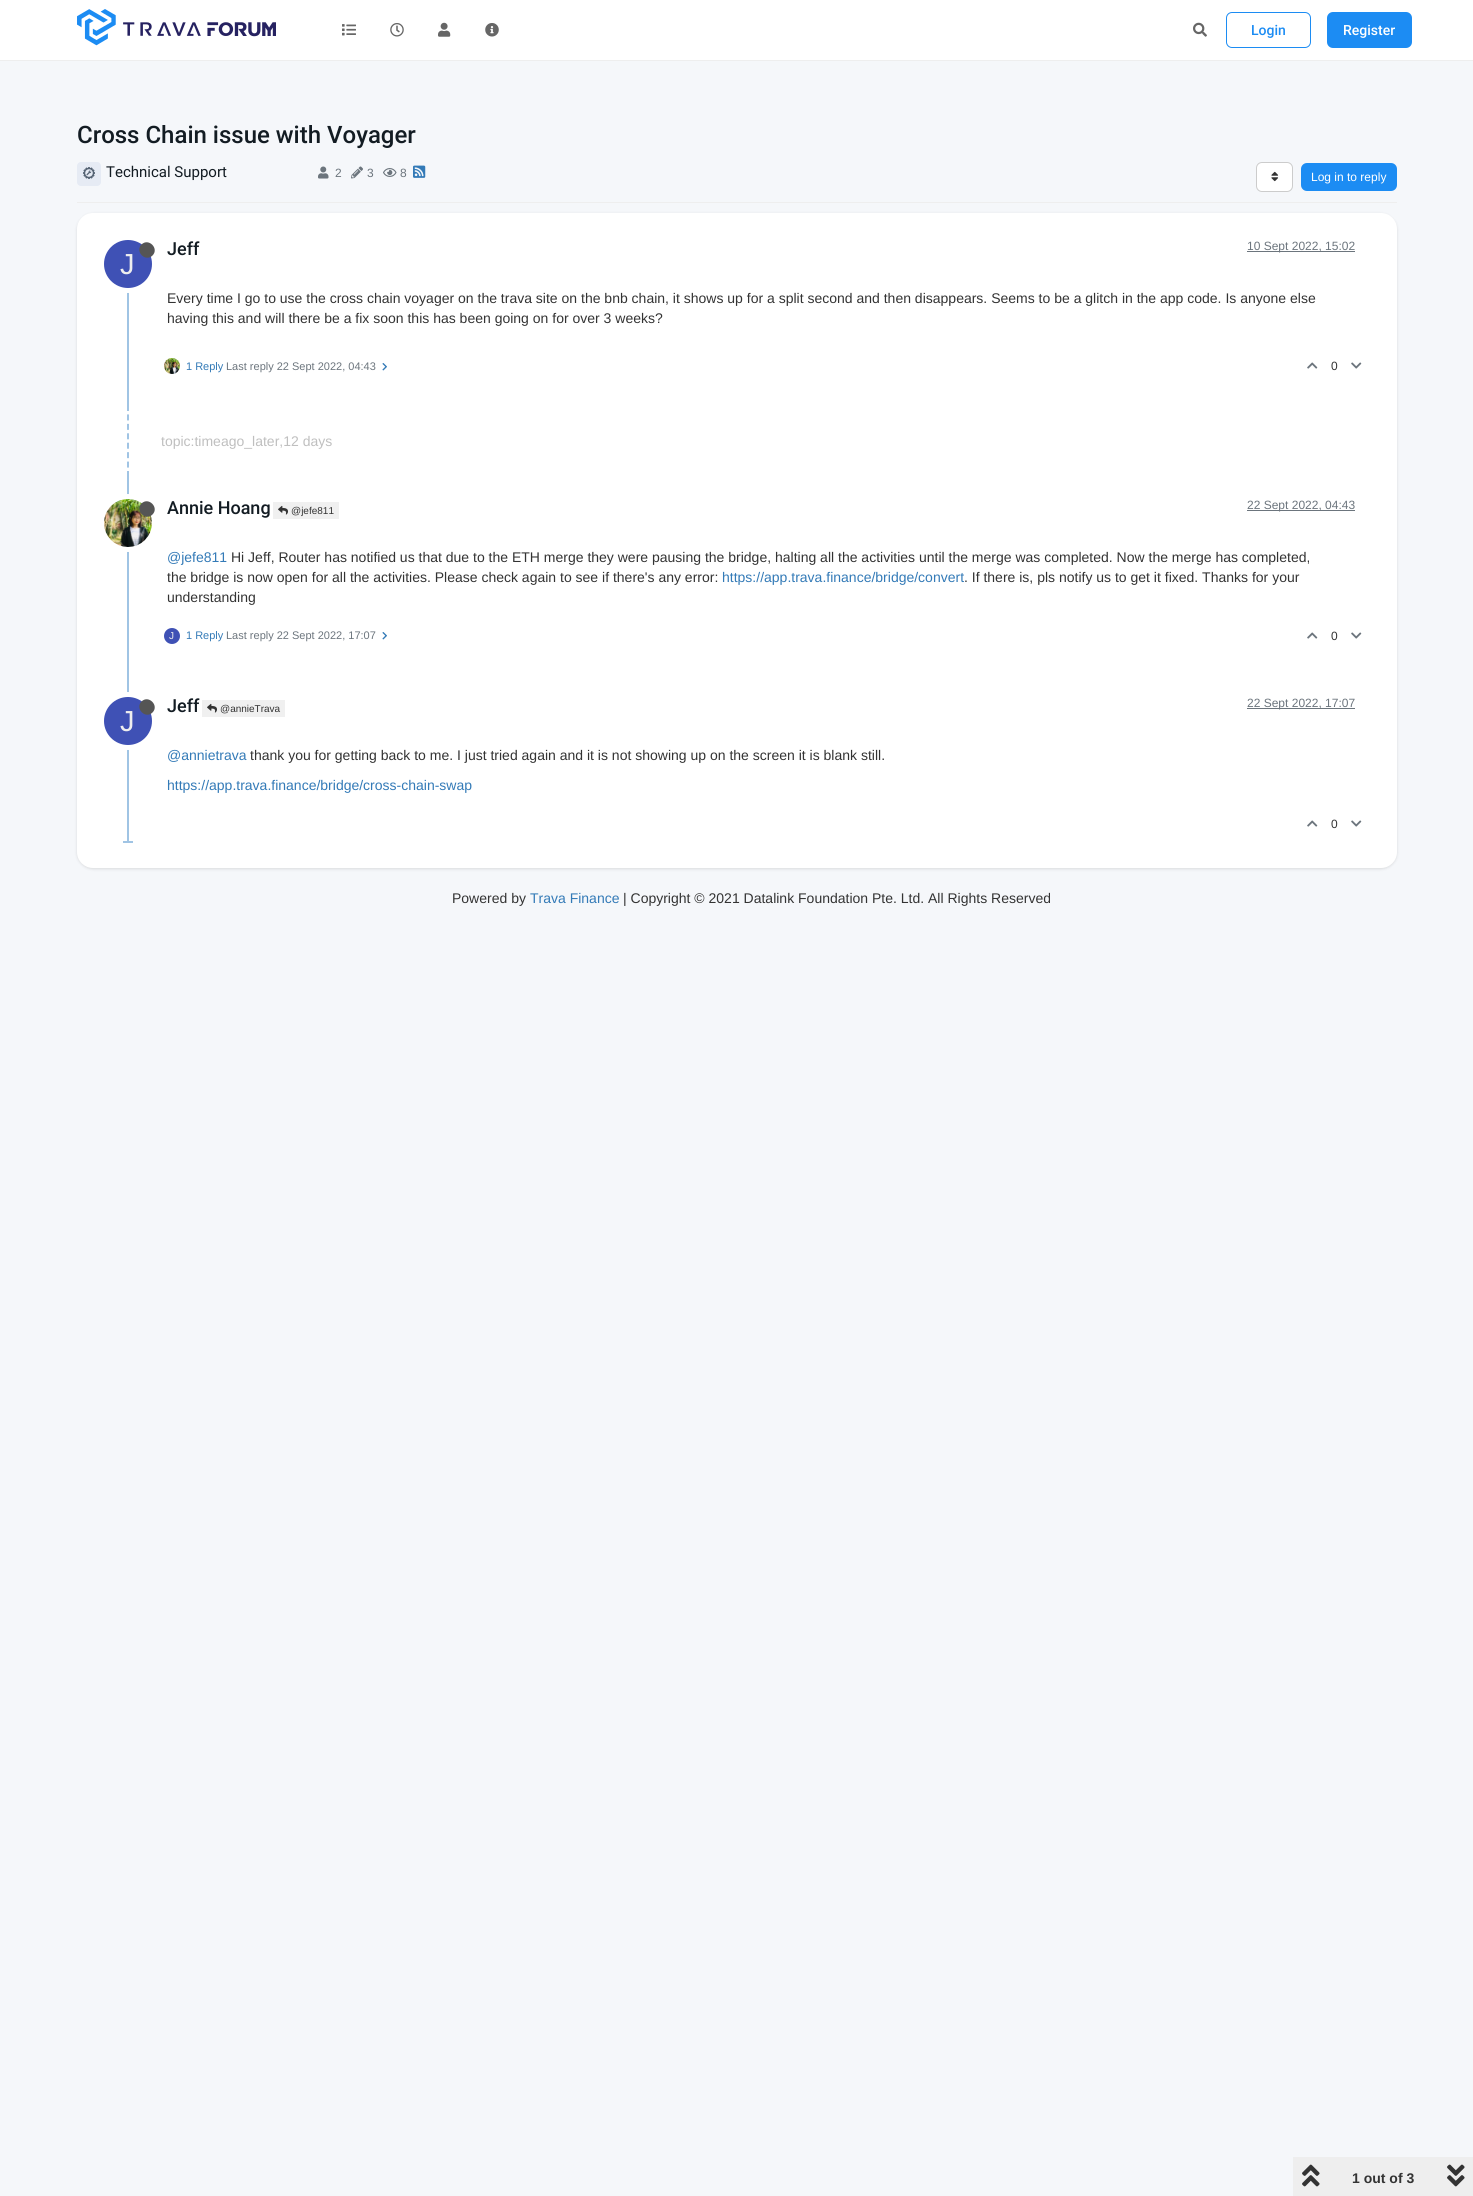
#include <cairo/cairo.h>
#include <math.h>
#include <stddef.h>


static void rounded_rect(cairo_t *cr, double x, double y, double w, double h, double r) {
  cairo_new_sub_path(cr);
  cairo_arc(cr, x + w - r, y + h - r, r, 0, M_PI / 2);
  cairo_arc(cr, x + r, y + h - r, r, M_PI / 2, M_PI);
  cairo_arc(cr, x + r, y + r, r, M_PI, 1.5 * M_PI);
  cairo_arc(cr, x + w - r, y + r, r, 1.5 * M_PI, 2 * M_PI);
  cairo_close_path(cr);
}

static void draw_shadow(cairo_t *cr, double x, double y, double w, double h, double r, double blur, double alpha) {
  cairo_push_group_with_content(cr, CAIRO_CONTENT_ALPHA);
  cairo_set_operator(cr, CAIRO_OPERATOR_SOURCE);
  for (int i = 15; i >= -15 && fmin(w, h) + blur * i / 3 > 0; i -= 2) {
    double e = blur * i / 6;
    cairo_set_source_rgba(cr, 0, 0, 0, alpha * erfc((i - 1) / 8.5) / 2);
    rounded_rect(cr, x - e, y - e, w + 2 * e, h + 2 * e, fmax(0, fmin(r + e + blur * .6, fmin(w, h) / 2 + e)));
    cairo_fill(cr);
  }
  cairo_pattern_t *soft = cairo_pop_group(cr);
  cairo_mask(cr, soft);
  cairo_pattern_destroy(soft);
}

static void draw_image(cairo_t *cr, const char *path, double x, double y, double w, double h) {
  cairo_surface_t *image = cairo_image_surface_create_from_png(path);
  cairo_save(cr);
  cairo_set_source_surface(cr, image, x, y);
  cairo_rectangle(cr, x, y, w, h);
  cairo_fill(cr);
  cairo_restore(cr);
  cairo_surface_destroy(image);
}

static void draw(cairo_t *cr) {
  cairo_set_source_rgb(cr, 245 / 255.0, 247 / 255.0, 250 / 255.0);
  cairo_paint(cr);
  cairo_set_source_rgb(cr, 1, 1, 1);
  cairo_rectangle(cr, 0, 0, 1473, 60);
  cairo_fill(cr);
  cairo_set_source_rgb(cr, 238 / 255.0, 238 / 255.0, 238 / 255.0);
  cairo_rectangle(cr, 0, 60, 1473, 1);
  cairo_fill(cr);
  draw_image(cr, "images/1.png", 77, 9, 199, 37);
  draw_image(cr, "images/2.png", 342, 24, 14, 12);
  draw_image(cr, "images/3.png", 390, 23, 14, 14);
  draw_image(cr, "images/4.png", 438, 22, 13, 15);
  draw_image(cr, "images/5.png", 485, 23, 14, 14);
  draw_image(cr, "images/6.png", 1193, 22, 14, 15);
  rounded_rect(cr, 1226.5, 12.5, 84, 35, 5.5);
  cairo_set_source_rgb(cr, 28 / 255.0, 140 / 255.0, 243 / 255.0);
  cairo_set_line_width(cr, 1);
  cairo_stroke(cr);
  rounded_rect(cr, 1327, 12, 85, 36, 6);
  cairo_fill(cr);
  cairo_set_source_rgb(cr, 238 / 255.0, 238 / 255.0, 238 / 255.0);
  cairo_rectangle(cr, 77, 202, 1320, 1);
  cairo_fill(cr);
  cairo_set_source_rgb(cr, 230 / 255.0, 235 / 255.0, 244 / 255.0);
  rounded_rect(cr, 77, 162, 24, 24, 4);
  cairo_fill(cr);
  draw_image(cr, "images/7.png", 83, 167, 12, 12);
  draw_image(cr, "images/8.png", 318, 166, 11, 13);
  draw_image(cr, "images/9.png", 351, 166, 12, 13);
  draw_image(cr, "images/10.png", 383, 168, 14, 9);
  draw_image(cr, "images/11.png", 413, 165, 13, 13);
  cairo_set_source_rgb(cr, 1, 1, 1);
  rounded_rect(cr, 1256.5, 162.5, 36, 29, 5.5);
  cairo_fill_preserve(cr);
  cairo_set_source_rgb(cr, 204 / 255.0, 204 / 255.0, 204 / 255.0);
  cairo_stroke(cr);
  draw_image(cr, "images/12.png", 1271, 171, 8, 11);
  cairo_set_source_rgb(cr, 28 / 255.0, 140 / 255.0, 243 / 255.0);
  rounded_rect(cr, 1301, 163, 96, 28, 6);
  cairo_fill(cr);
  cairo_set_source_rgb(cr, 0, 0, 0);
  draw_shadow(cr, 77, 214, 1320, 655, 16, 1.5, 0.12);
  cairo_set_source_rgb(cr, 1, 1, 1);
  rounded_rect(cr, 77, 213, 1320, 655, 16);
  cairo_fill(cr);
  cairo_set_source_rgb(cr, 160 / 255.0, 196 / 255.0, 228 / 255.0);
  cairo_rectangle(cr, 127, 238, 2, 167);
  cairo_fill(cr);
  cairo_set_source_rgb(cr, 108 / 255.0, 117 / 255.0, 125 / 255.0);
  cairo_rectangle(cr, 1247, 251, 108, 1);
  cairo_fill(cr);
  cairo_arc(cr, 128, 264, 26.5, 0, 2 * M_PI);
  cairo_set_source_rgb(cr, 1, 1, 1);
  cairo_set_line_width(cr, 5);
  cairo_stroke(cr);
  cairo_set_source_rgb(cr, 63 / 255.0, 81 / 255.0, 181 / 255.0);
  cairo_arc(cr, 128, 264, 24, 0, 2 * M_PI);
  cairo_fill(cr);
  cairo_set_source_rgb(cr, 85 / 255.0, 85 / 255.0, 85 / 255.0);
  cairo_new_path(cr);
  cairo_move_to(cr, 141.5, 244.5);
  cairo_curve_to(cr, 148.5, 237.5, 159.5, 248.5, 152.5, 255.5);
  cairo_curve_to(cr, 145.5, 262.5, 134.5, 251.5, 141.5, 244.5);
  cairo_close_path(cr);
  cairo_fill(cr);
  draw_image(cr, "images/13.png", 164, 358, 16, 16);
  draw_image(cr, "images/14.png", 382, 363, 5, 8);
  draw_image(cr, "images/15.png", 1307, 362, 11, 7);
  draw_image(cr, "images/16.png", 1351, 362, 11, 7);
  cairo_new_path(cr);
  cairo_move_to(cr, 128, 405);
  cairo_line_to(cr, 128, 477);
  cairo_set_source_rgb(cr, 160 / 255.0, 196 / 255.0, 228 / 255.0);
  cairo_set_line_width(cr, 2);
  cairo_set_dash(cr, (double[]){6, 3.43}, 2, 0);
  cairo_stroke(cr);
  cairo_rectangle(cr, 127, 477, 2, 366);
  cairo_fill(cr);
  cairo_arc(cr, 128, 523, 26.5, 0, 2 * M_PI);
  cairo_set_source_rgb(cr, 1, 1, 1);
  cairo_set_line_width(cr, 5);
  cairo_set_dash(cr, NULL, 0, 0);
  cairo_stroke(cr);
  draw_image(cr, "images/17.png", 104, 499, 48, 48);
  cairo_set_source_rgb(cr, 85 / 255.0, 85 / 255.0, 85 / 255.0);
  cairo_new_path(cr);
  cairo_move_to(cr, 141.5, 503.5);
  cairo_curve_to(cr, 148.5, 496.5, 159.5, 507.5, 152.5, 514.5);
  cairo_curve_to(cr, 145.5, 521.5, 134.5, 510.5, 141.5, 503.5);
  cairo_close_path(cr);
  cairo_fill(cr);
  cairo_set_source_rgb(cr, 240 / 255.0, 240 / 255.0, 240 / 255.0);
  cairo_rectangle(cr, 273, 502, 66, 17);
  cairo_fill(cr);
  draw_image(cr, "images/18.png", 278, 505, 10, 10);
  cairo_set_source_rgb(cr, 108 / 255.0, 117 / 255.0, 125 / 255.0);
  cairo_rectangle(cr, 1247, 510, 108, 1);
  cairo_fill(cr);
  cairo_set_source_rgb(cr, 63 / 255.0, 81 / 255.0, 181 / 255.0);
  cairo_arc(cr, 172, 636, 8, 0, 2 * M_PI);
  cairo_fill(cr);
  draw_image(cr, "images/14.png", 382, 632, 5, 8);
  draw_image(cr, "images/15.png", 1307, 632, 11, 7);
  draw_image(cr, "images/16.png", 1351, 632, 11, 7);
  cairo_set_source_rgb(cr, 240 / 255.0, 240 / 255.0, 240 / 255.0);
  cairo_rectangle(cr, 202, 700, 83, 17);
  cairo_fill(cr);
  draw_image(cr, "images/18.png", 207, 703, 10, 10);
  cairo_set_source_rgb(cr, 108 / 255.0, 117 / 255.0, 125 / 255.0);
  cairo_rectangle(cr, 1247, 708, 108, 1);
  cairo_fill(cr);
  cairo_arc(cr, 128, 721, 26.5, 0, 2 * M_PI);
  cairo_set_source_rgb(cr, 1, 1, 1);
  cairo_stroke(cr);
  cairo_set_source_rgb(cr, 63 / 255.0, 81 / 255.0, 181 / 255.0);
  cairo_arc(cr, 128, 721, 24, 0, 2 * M_PI);
  cairo_fill(cr);
  cairo_set_source_rgb(cr, 85 / 255.0, 85 / 255.0, 85 / 255.0);
  cairo_new_path(cr);
  cairo_move_to(cr, 141.5, 701.5);
  cairo_curve_to(cr, 148.5, 694.5, 159.5, 705.5, 152.5, 712.5);
  cairo_curve_to(cr, 145.5, 719.5, 134.5, 708.5, 141.5, 701.5);
  cairo_close_path(cr);
  cairo_fill(cr);
  draw_image(cr, "images/15.png", 1307, 820, 11, 7);
  draw_image(cr, "images/16.png", 1351, 820, 11, 7);
  cairo_set_source_rgb(cr, 160 / 255.0, 196 / 255.0, 228 / 255.0);
  cairo_rectangle(cr, 123, 841, 10, 2);
  cairo_fill(cr);
  cairo_set_source_rgb(cr, 238 / 255.0, 238 / 255.0, 238 / 255.0);
  cairo_rectangle(cr, 1293, 2157, 180, 39);
  cairo_fill(cr);
  draw_image(cr, "images/19.png", 1302, 2164, 18, 23);
  draw_image(cr, "images/20.png", 1447, 2164, 18, 23);
  cairo_select_font_face(cr, "Roboto Medium", CAIRO_FONT_SLANT_NORMAL, CAIRO_FONT_WEIGHT_NORMAL);
  cairo_set_font_size(cr, 14);
  cairo_set_source_rgb(cr, 28 / 255.0, 140 / 255.0, 243 / 255.0);
  cairo_move_to(cr, 1251, 35);
  cairo_show_text(cr, "Login");
  cairo_set_source_rgb(cr, 1, 1, 1);
  cairo_move_to(cr, 1343, 35);
  cairo_show_text(cr, "Register");
  cairo_set_font_size(cr, 24);
  cairo_set_source_rgb(cr, 19 / 255.0, 28 / 255.0, 35 / 255.0);
  cairo_move_to(cr, 77, 143);
  cairo_show_text(cr, "Cross Chain issue with Voyager");
  cairo_select_font_face(cr, "Roboto", CAIRO_FONT_SLANT_NORMAL, CAIRO_FONT_WEIGHT_NORMAL);
  cairo_set_font_size(cr, 15);
  cairo_move_to(cr, 106, 177);
  cairo_show_text(cr, "Technical Support");
  cairo_select_font_face(cr, "Liberation Sans", CAIRO_FONT_SLANT_NORMAL, CAIRO_FONT_WEIGHT_NORMAL);
  cairo_set_font_size(cr, 12);
  cairo_set_source_rgb(cr, 108 / 255.0, 117 / 255.0, 125 / 255.0);
  cairo_move_to(cr, 335, 177);
  cairo_show_text(cr, "2");
  cairo_move_to(cr, 367, 177);
  cairo_show_text(cr, "3");
  cairo_move_to(cr, 400, 177);
  cairo_show_text(cr, "8");
  cairo_set_source_rgb(cr, 1, 1, 1);
  cairo_move_to(cr, 1311, 181);
  cairo_show_text(cr, "Log in to reply");
  cairo_select_font_face(cr, "Roboto Medium", CAIRO_FONT_SLANT_NORMAL, CAIRO_FONT_WEIGHT_NORMAL);
  cairo_set_font_size(cr, 18);
  cairo_set_source_rgb(cr, 19 / 255.0, 28 / 255.0, 35 / 255.0);
  cairo_move_to(cr, 167, 255);
  cairo_show_text(cr, "Jeff");
  cairo_select_font_face(cr, "Liberation Sans", CAIRO_FONT_SLANT_NORMAL, CAIRO_FONT_WEIGHT_NORMAL);
  cairo_set_font_size(cr, 12);
  cairo_set_source_rgb(cr, 108 / 255.0, 117 / 255.0, 125 / 255.0);
  cairo_move_to(cr, 1247, 250);
  cairo_show_text(cr, "10 Sept 2022, 15:02");
  cairo_set_font_size(cr, 29);
  cairo_set_source_rgb(cr, 238 / 255.0, 238 / 255.0, 238 / 255.0);
  cairo_move_to(cr, 120, 274);
  cairo_show_text(cr, "J");
  cairo_set_font_size(cr, 14);
  cairo_set_source_rgb(cr, 51 / 255.0, 51 / 255.0, 51 / 255.0);
  cairo_move_to(cr, 167, 303);
  cairo_show_text(cr, "Every time I go to use the cross chain voyager on the trava site on the bnb chain, it shows up for a split second and then disappears. Seems to be a glitch in the app code. Is anyone else");
  cairo_move_to(cr, 167, 323);
  cairo_show_text(cr, "having this and will there be a fix soon this has been going on for over 3 weeks?");
  cairo_set_font_size(cr, 11);
  cairo_set_source_rgb(cr, 51 / 255.0, 122 / 255.0, 183 / 255.0);
  cairo_move_to(cr, 186, 370);
  cairo_show_text(cr, "1 Reply");
  cairo_set_source_rgb(cr, 108 / 255.0, 117 / 255.0, 125 / 255.0);
  cairo_move_to(cr, 226, 370);
  cairo_show_text(cr, "Last reply 22 Sept 2022, 04:43");
  cairo_set_font_size(cr, 12);
  cairo_set_source_rgb(cr, 51 / 255.0, 51 / 255.0, 51 / 255.0);
  cairo_move_to(cr, 1331, 370);
  cairo_show_text(cr, "0");
  cairo_set_font_size(cr, 14);
  cairo_set_source_rgb(cr, 191 / 255.0, 191 / 255.0, 191 / 255.0);
  cairo_move_to(cr, 161, 446);
  cairo_show_text(cr, "topic:timeago_later,12 days");
  cairo_select_font_face(cr, "Roboto Medium", CAIRO_FONT_SLANT_NORMAL, CAIRO_FONT_WEIGHT_NORMAL);
  cairo_set_font_size(cr, 18);
  cairo_set_source_rgb(cr, 19 / 255.0, 28 / 255.0, 35 / 255.0);
  cairo_move_to(cr, 167, 514);
  cairo_show_text(cr, "Annie Hoang");
  cairo_select_font_face(cr, "Liberation Sans", CAIRO_FONT_SLANT_NORMAL, CAIRO_FONT_WEIGHT_NORMAL);
  cairo_set_font_size(cr, 10);
  cairo_set_source_rgb(cr, 51 / 255.0, 51 / 255.0, 51 / 255.0);
  cairo_move_to(cr, 291, 514);
  cairo_show_text(cr, "@jefe811");
  cairo_set_font_size(cr, 12);
  cairo_set_source_rgb(cr, 108 / 255.0, 117 / 255.0, 125 / 255.0);
  cairo_move_to(cr, 1247, 509);
  cairo_show_text(cr, "22 Sept 2022, 04:43");
  cairo_set_font_size(cr, 14);
  cairo_set_source_rgb(cr, 51 / 255.0, 122 / 255.0, 183 / 255.0);
  cairo_move_to(cr, 167, 562);
  cairo_show_text(cr, "@jefe811");
  cairo_set_source_rgb(cr, 51 / 255.0, 51 / 255.0, 51 / 255.0);
  cairo_move_to(cr, 231, 562);
  cairo_show_text(cr, "Hi Jeff, Router has notified us that due to the ETH merge they were pausing the bridge, halting all the activities until the merge was completed. Now the merge has completed,");
  cairo_move_to(cr, 167, 582);
  cairo_show_text(cr, "the bridge is now open for all the activities. Please check again to see if there's any error:");
  cairo_set_source_rgb(cr, 51 / 255.0, 122 / 255.0, 183 / 255.0);
  cairo_move_to(cr, 722, 582);
  cairo_show_text(cr, "https://app.trava.finance/bridge/convert");
  cairo_set_source_rgb(cr, 51 / 255.0, 51 / 255.0, 51 / 255.0);
  cairo_move_to(cr, 964, 582);
  cairo_show_text(cr, ". If there is, pls notify us to get it fixed. Thanks for your");
  cairo_move_to(cr, 167, 602);
  cairo_show_text(cr, "understanding");
  cairo_set_font_size(cr, 10);
  cairo_set_source_rgb(cr, 238 / 255.0, 238 / 255.0, 238 / 255.0);
  cairo_move_to(cr, 169, 639);
  cairo_show_text(cr, "J");
  cairo_set_font_size(cr, 11);
  cairo_set_source_rgb(cr, 51 / 255.0, 122 / 255.0, 183 / 255.0);
  cairo_move_to(cr, 186, 639);
  cairo_show_text(cr, "1 Reply");
  cairo_set_source_rgb(cr, 108 / 255.0, 117 / 255.0, 125 / 255.0);
  cairo_move_to(cr, 226, 639);
  cairo_show_text(cr, "Last reply 22 Sept 2022, 17:07");
  cairo_set_font_size(cr, 12);
  cairo_set_source_rgb(cr, 51 / 255.0, 51 / 255.0, 51 / 255.0);
  cairo_move_to(cr, 1331, 640);
  cairo_show_text(cr, "0");
  cairo_select_font_face(cr, "Roboto Medium", CAIRO_FONT_SLANT_NORMAL, CAIRO_FONT_WEIGHT_NORMAL);
  cairo_set_font_size(cr, 18);
  cairo_set_source_rgb(cr, 19 / 255.0, 28 / 255.0, 35 / 255.0);
  cairo_move_to(cr, 167, 712);
  cairo_show_text(cr, "Jeff");
  cairo_select_font_face(cr, "Liberation Sans", CAIRO_FONT_SLANT_NORMAL, CAIRO_FONT_WEIGHT_NORMAL);
  cairo_set_font_size(cr, 10);
  cairo_set_source_rgb(cr, 51 / 255.0, 51 / 255.0, 51 / 255.0);
  cairo_move_to(cr, 220, 712);
  cairo_show_text(cr, "@annieTrava");
  cairo_set_font_size(cr, 12);
  cairo_set_source_rgb(cr, 108 / 255.0, 117 / 255.0, 125 / 255.0);
  cairo_move_to(cr, 1247, 707);
  cairo_show_text(cr, "22 Sept 2022, 17:07");
  cairo_set_font_size(cr, 29);
  cairo_set_source_rgb(cr, 238 / 255.0, 238 / 255.0, 238 / 255.0);
  cairo_move_to(cr, 120, 731);
  cairo_show_text(cr, "J");
  cairo_set_font_size(cr, 14);
  cairo_set_source_rgb(cr, 51 / 255.0, 122 / 255.0, 183 / 255.0);
  cairo_move_to(cr, 167, 760);
  cairo_show_text(cr, "@annietrava");
  cairo_set_source_rgb(cr, 51 / 255.0, 51 / 255.0, 51 / 255.0);
  cairo_move_to(cr, 250, 760);
  cairo_show_text(cr, "thank you for getting back to me. I just tried again and it is not showing up on the screen it is blank still.");
  cairo_set_source_rgb(cr, 51 / 255.0, 122 / 255.0, 183 / 255.0);
  cairo_move_to(cr, 167, 790);
  cairo_show_text(cr, "https://app.trava.finance/bridge/cross-chain-swap");
  cairo_set_font_size(cr, 12);
  cairo_set_source_rgb(cr, 51 / 255.0, 51 / 255.0, 51 / 255.0);
  cairo_move_to(cr, 1331, 828);
  cairo_show_text(cr, "0");
  cairo_select_font_face(cr, "Liberation Sans", CAIRO_FONT_SLANT_NORMAL, CAIRO_FONT_WEIGHT_BOLD);
  cairo_set_font_size(cr, 14);
  cairo_move_to(cr, 1352, 2183);
  cairo_show_text(cr, "1 out of 3");
  cairo_select_font_face(cr, "Liberation Sans", CAIRO_FONT_SLANT_NORMAL, CAIRO_FONT_WEIGHT_NORMAL);
  cairo_move_to(cr, 452, 903);
  cairo_show_text(cr, "Powered by");
  cairo_set_source_rgb(cr, 51 / 255.0, 122 / 255.0, 183 / 255.0);
  cairo_move_to(cr, 530, 903);
  cairo_show_text(cr, "Trava Finance");
  cairo_set_source_rgb(cr, 51 / 255.0, 51 / 255.0, 51 / 255.0);
  cairo_move_to(cr, 623, 903);
  cairo_show_text(cr, "| Copyright © 2021 Datalink Foundation Pte. Ltd. All Rights Reserved");
}

int main(void) {
  cairo_surface_t *surface = cairo_image_surface_create(CAIRO_FORMAT_RGB24, 1473, 2196);
  cairo_t *cr = cairo_create(surface);
  cairo_font_options_t *options = cairo_font_options_create();
  cairo_font_options_set_hint_metrics(options, CAIRO_HINT_METRICS_OFF);
  cairo_font_options_set_hint_style(options, CAIRO_HINT_STYLE_NONE);
  cairo_set_font_options(cr, options);
  cairo_set_miter_limit(cr, 4);
  draw(cr);
  cairo_surface_write_to_png(surface, "out.png");
  cairo_font_options_destroy(options);
  cairo_destroy(cr);
  cairo_surface_destroy(surface);
  return 0;
}
